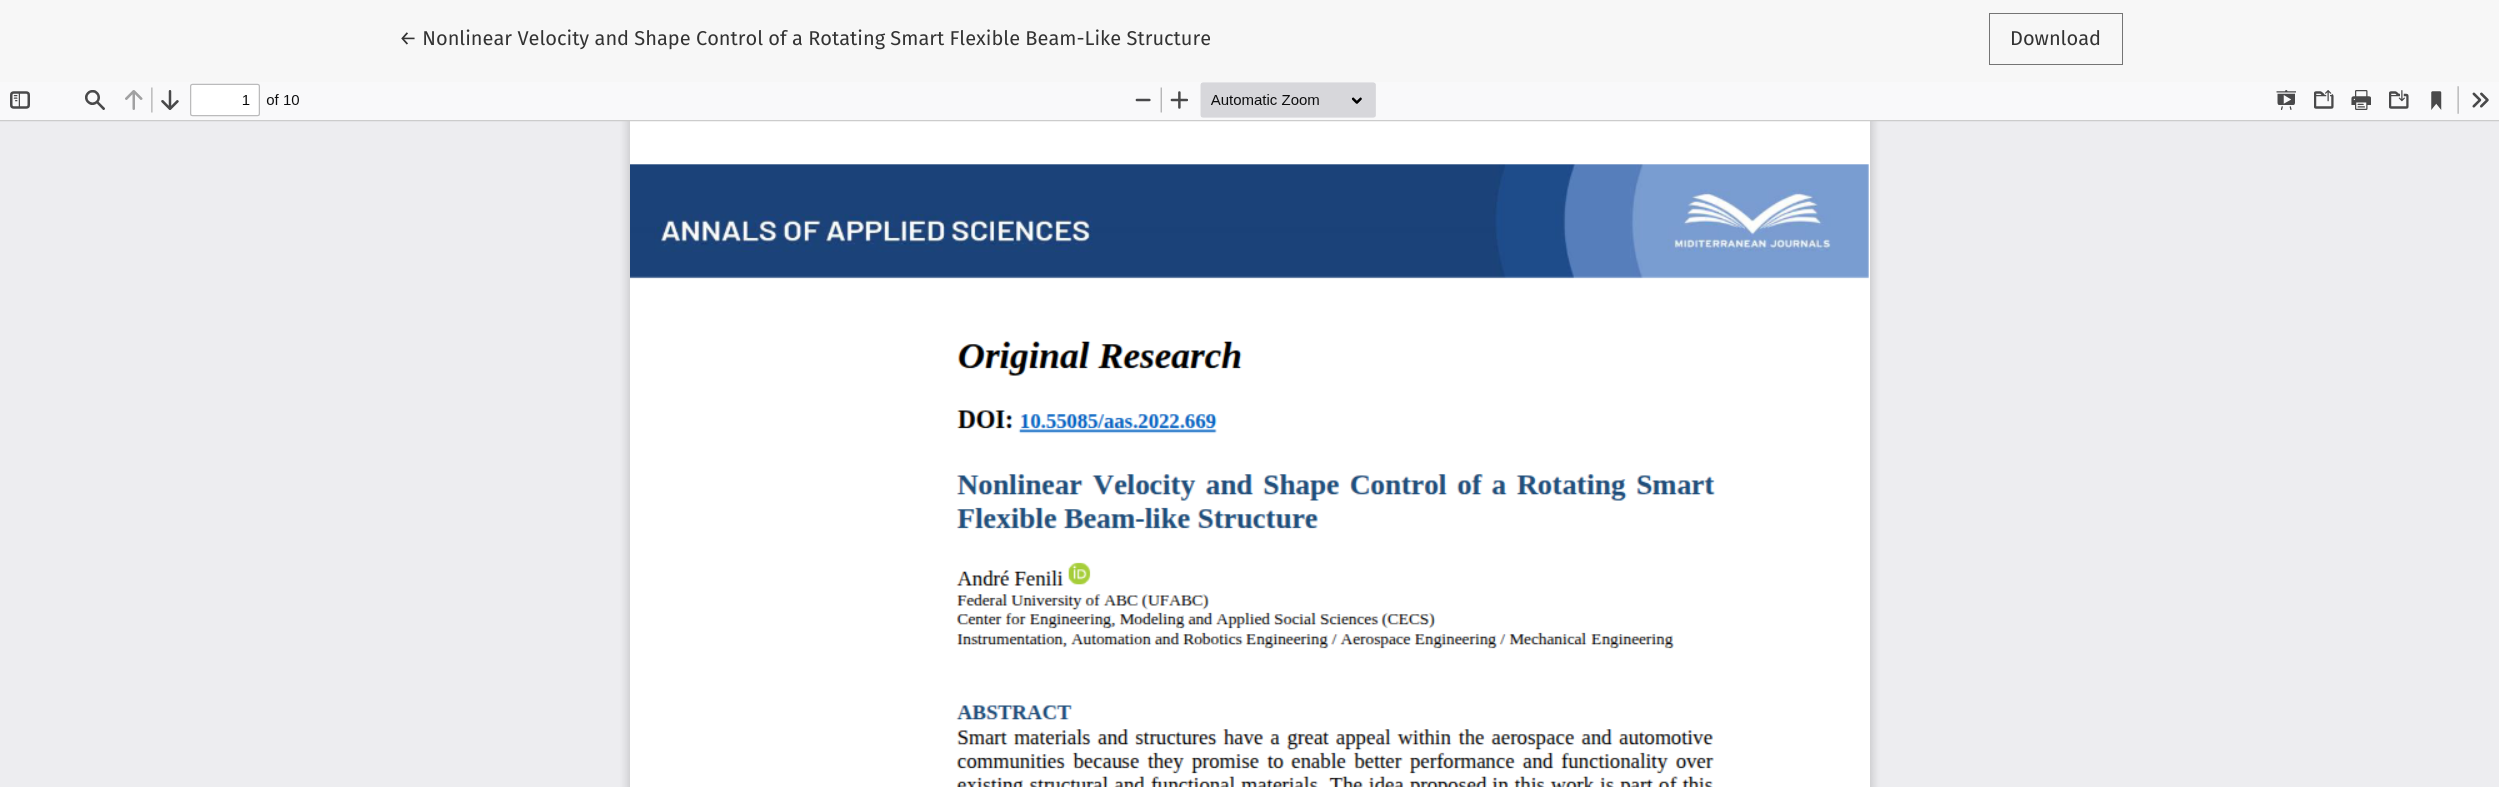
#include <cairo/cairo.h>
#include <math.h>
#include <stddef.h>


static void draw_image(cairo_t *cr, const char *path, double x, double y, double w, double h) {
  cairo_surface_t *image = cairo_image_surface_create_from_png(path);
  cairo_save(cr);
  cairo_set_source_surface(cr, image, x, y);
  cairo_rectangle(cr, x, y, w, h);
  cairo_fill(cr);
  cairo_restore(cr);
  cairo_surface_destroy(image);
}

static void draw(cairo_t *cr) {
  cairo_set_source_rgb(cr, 247 / 255.0, 247 / 255.0, 247 / 255.0);
  cairo_paint(cr);
  cairo_rectangle(cr, 1989.5, 13.5, 133, 51);
  cairo_set_source_rgb(cr, 117 / 255.0, 117 / 255.0, 117 / 255.0);
  cairo_set_line_width(cr, 1);
  cairo_stroke(cr);
  draw_image(cr, "images/1.png", 0, 82, 2499, 705);
  cairo_select_font_face(cr, "Fira Sans", CAIRO_FONT_SLANT_NORMAL, CAIRO_FONT_WEIGHT_NORMAL);
  cairo_set_font_size(cr, 20);
  cairo_set_source_rgb(cr, 51 / 255.0, 51 / 255.0, 51 / 255.0);
  cairo_move_to(cr, 399, 45);
  cairo_show_text(cr, "← Nonlinear Velocity and Shape Control of a Rotating Smart Flexible Beam-Like Structure");
  cairo_move_to(cr, 2010, 45);
  cairo_show_text(cr, "Download");
}

int main(void) {
  cairo_surface_t *surface = cairo_image_surface_create(CAIRO_FORMAT_RGB24, 2499, 787);
  cairo_t *cr = cairo_create(surface);
  cairo_font_options_t *options = cairo_font_options_create();
  cairo_font_options_set_hint_metrics(options, CAIRO_HINT_METRICS_OFF);
  cairo_font_options_set_hint_style(options, CAIRO_HINT_STYLE_NONE);
  cairo_set_font_options(cr, options);
  cairo_set_miter_limit(cr, 4);
  draw(cr);
  cairo_surface_write_to_png(surface, "out.png");
  cairo_font_options_destroy(options);
  cairo_destroy(cr);
  cairo_surface_destroy(surface);
  return 0;
}
